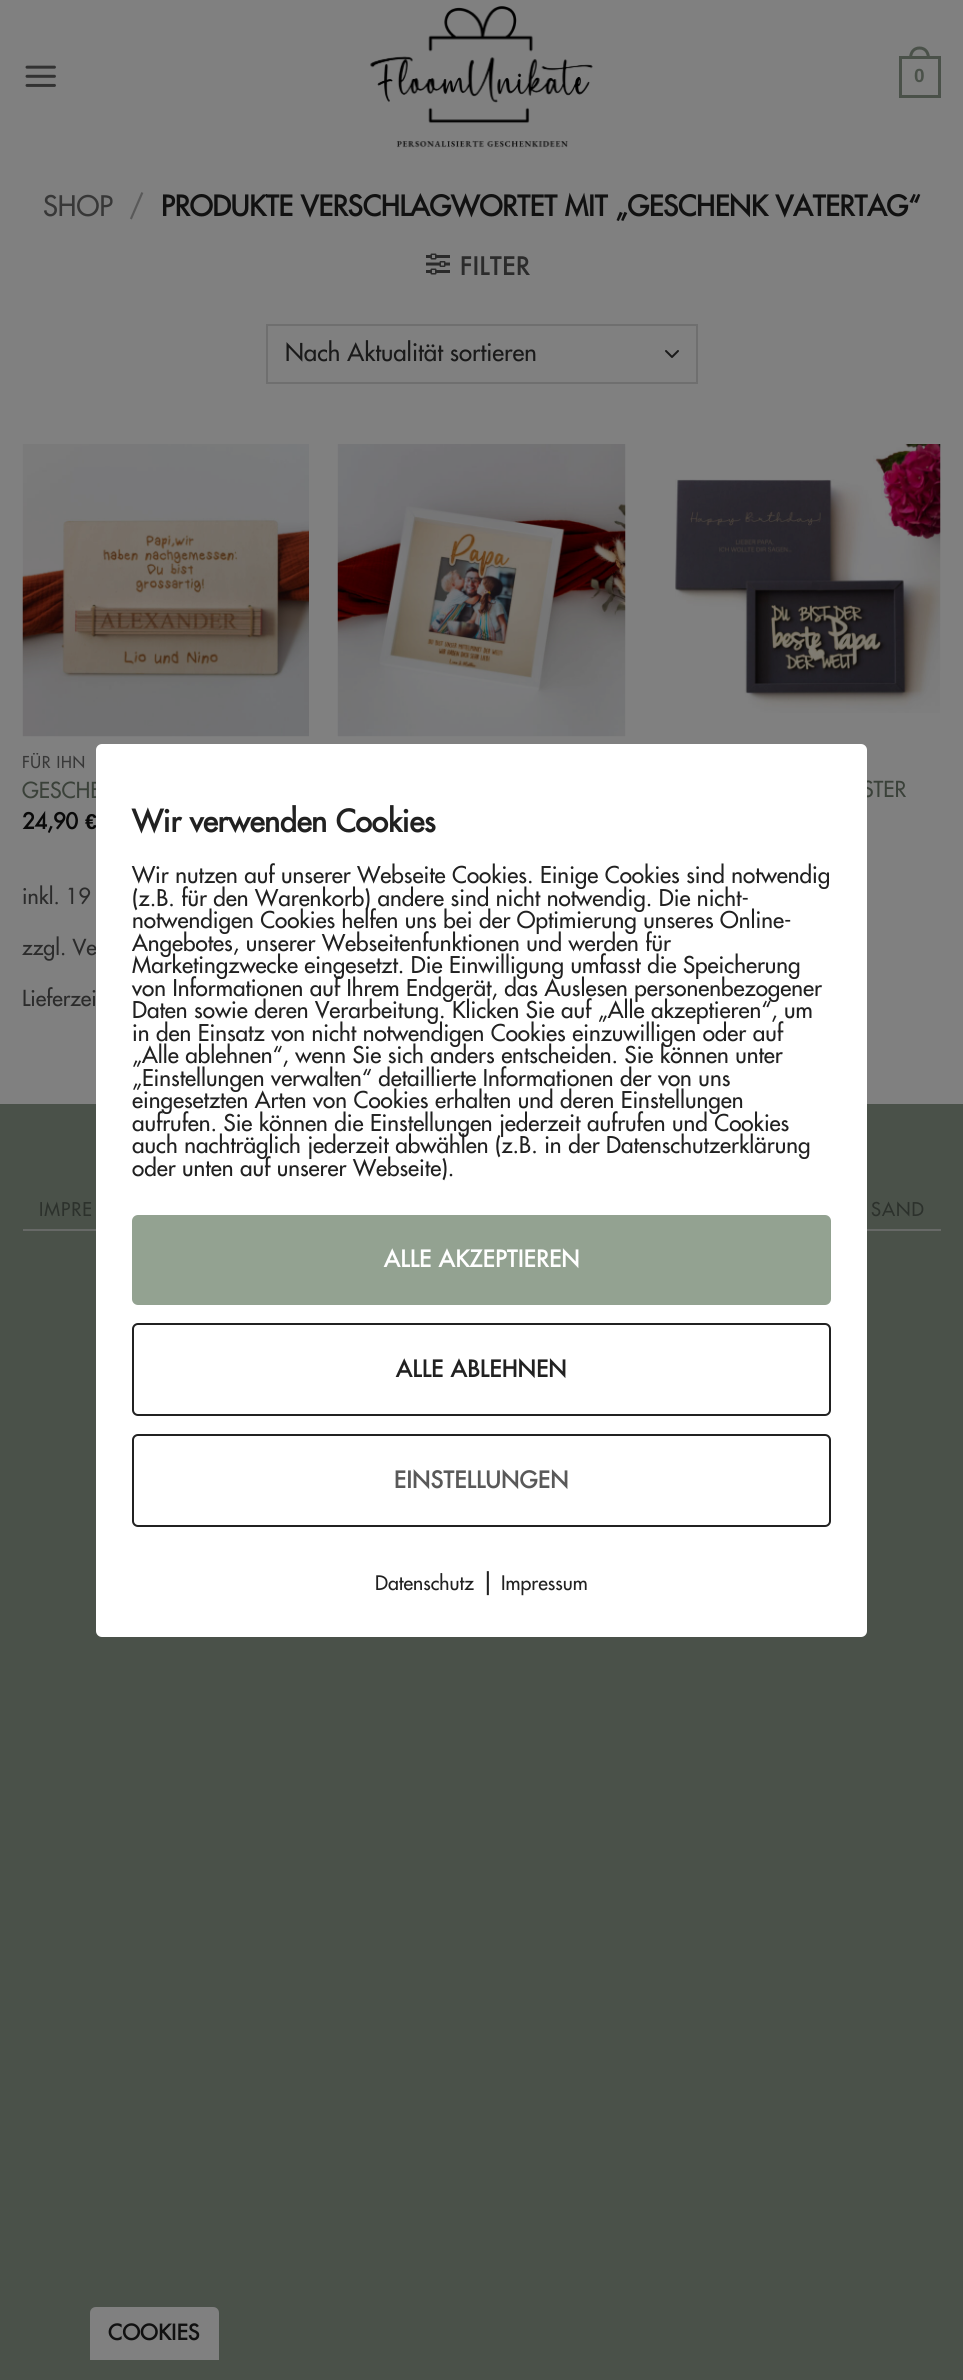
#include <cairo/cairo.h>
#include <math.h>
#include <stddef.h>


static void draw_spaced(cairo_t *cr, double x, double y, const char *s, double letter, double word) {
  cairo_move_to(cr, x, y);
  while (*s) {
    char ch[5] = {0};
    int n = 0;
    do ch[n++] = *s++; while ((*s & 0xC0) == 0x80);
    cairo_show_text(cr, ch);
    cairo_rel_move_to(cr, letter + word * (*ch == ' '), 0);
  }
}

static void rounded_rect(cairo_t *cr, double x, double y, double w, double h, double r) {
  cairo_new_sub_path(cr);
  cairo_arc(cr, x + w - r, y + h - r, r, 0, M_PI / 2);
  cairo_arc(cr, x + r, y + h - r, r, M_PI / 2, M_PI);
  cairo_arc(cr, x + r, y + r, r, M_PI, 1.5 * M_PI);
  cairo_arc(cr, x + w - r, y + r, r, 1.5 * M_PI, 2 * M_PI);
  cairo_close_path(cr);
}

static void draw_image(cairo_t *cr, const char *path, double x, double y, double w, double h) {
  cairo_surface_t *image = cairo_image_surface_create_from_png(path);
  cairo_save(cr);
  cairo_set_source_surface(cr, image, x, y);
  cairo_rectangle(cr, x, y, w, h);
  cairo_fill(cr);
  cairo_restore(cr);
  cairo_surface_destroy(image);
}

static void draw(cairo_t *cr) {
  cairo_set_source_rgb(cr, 74 / 255.0, 81 / 255.0, 73 / 255.0);
  cairo_paint(cr);
  cairo_set_source_rgb(cr, 128 / 255.0, 128 / 255.0, 128 / 255.0);
  cairo_rectangle(cr, 0, 0, 963, 1104);
  cairo_fill(cr);
  draw_image(cr, "images/1.png", 25, 65, 31, 22);
  draw_image(cr, "images/2.png", 370, 6, 223, 142);
  cairo_rectangle(cr, 900.5, 57.5, 39, 39);
  cairo_set_source_rgb(cr, 74 / 255.0, 81 / 255.0, 73 / 255.0);
  cairo_set_line_width(cr, 3);
  cairo_stroke(cr);
  cairo_set_fill_rule(cr, CAIRO_FILL_RULE_EVEN_ODD);
  cairo_new_path(cr);
  cairo_move_to(cr, 919.5, 46.5);
  cairo_curve_to(cr, 926.5, 46.5, 930, 52, 930, 58.5);
  cairo_line_to(cr, 909, 58.5);
  cairo_curve_to(cr, 909, 52, 912.5, 46.5, 919.5, 46.5);
  cairo_close_path(cr);
  cairo_move_to(cr, 919.5, 49.5);
  cairo_curve_to(cr, 925, 49.5, 927, 54, 927, 58.5);
  cairo_line_to(cr, 912, 58.5);
  cairo_curve_to(cr, 912, 54, 914, 49.5, 919.5, 49.5);
  cairo_close_path(cr);
  cairo_fill(cr);
  draw_image(cr, "images/3.png", 426, 253, 24, 22);
  cairo_new_path(cr);
  cairo_move_to(cr, 666, 351);
  cairo_line_to(cr, 672, 357);
  cairo_line_to(cr, 678, 351);
  cairo_set_source_rgb(cr, 26 / 255.0, 26 / 255.0, 26 / 255.0);
  cairo_set_line_width(cr, 2);
  cairo_set_line_cap(cr, CAIRO_LINE_CAP_ROUND);
  cairo_set_line_join(cr, CAIRO_LINE_JOIN_ROUND);
  cairo_stroke(cr);
  cairo_rectangle(cr, 267, 325, 430, 58);
  cairo_set_source_rgb(cr, 111 / 255.0, 111 / 255.0, 111 / 255.0);
  cairo_set_line_cap(cr, CAIRO_LINE_CAP_BUTT);
  cairo_set_line_join(cr, CAIRO_LINE_JOIN_MITER);
  cairo_stroke(cr);
  draw_image(cr, "images/4.png", 337, 444, 289, 293);
  draw_image(cr, "images/5.png", 22, 444, 287, 293);
  draw_image(cr, "images/6.png", 675, 444, 266, 269);
  cairo_set_source_rgb(cr, 103 / 255.0, 105 / 255.0, 103 / 255.0);
  cairo_rectangle(cr, 23, 1229, 918, 2);
  cairo_fill(cr);
  cairo_set_source_rgb(cr, 128 / 255.0, 128 / 255.0, 128 / 255.0);
  cairo_new_path(cr);
  cairo_move_to(cr, 96, 2307);
  cairo_line_to(cr, 213, 2307);
  cairo_curve_to(cr, 216.5, 2307, 219, 2309.5, 219, 2313);
  cairo_line_to(cr, 219, 2360);
  cairo_line_to(cr, 90, 2360);
  cairo_line_to(cr, 90, 2313);
  cairo_curve_to(cr, 90, 2309.5, 92.5, 2307, 96, 2307);
  cairo_close_path(cr);
  cairo_fill(cr);
  cairo_select_font_face(cr, "Liberation Sans", CAIRO_FONT_SLANT_NORMAL, CAIRO_FONT_WEIGHT_BOLD);
  cairo_set_font_size(cr, 19);
  cairo_set_source_rgb(cr, 74 / 255.0, 81 / 255.0, 73 / 255.0);
  cairo_move_to(cr, 914, 82);
  cairo_show_text(cr, "0");
  cairo_select_font_face(cr, "Futura Medium", CAIRO_FONT_SLANT_NORMAL, CAIRO_FONT_WEIGHT_NORMAL);
  cairo_set_font_size(cr, 27.6);
  cairo_set_source_rgb(cr, 55 / 255.0, 55 / 255.0, 55 / 255.0);
  cairo_move_to(cr, 43, 216);
  cairo_show_text(cr, "SHOP");
  cairo_set_source_rgb(cr, 89 / 255.0, 89 / 255.0, 89 / 255.0);
  cairo_move_to(cr, 129, 216);
  cairo_show_text(cr, "/");
  cairo_select_font_face(cr, "Futura", CAIRO_FONT_SLANT_NORMAL, CAIRO_FONT_WEIGHT_BOLD);
  cairo_set_source_rgb(cr, 17 / 255.0, 17 / 255.0, 17 / 255.0);
  cairo_move_to(cr, 161, 216);
  cairo_show_text(cr, "PRODUKTE VERSCHLAGWORTET MIT „GESCHENK VATERTAG“");
  cairo_set_font_size(cr, 24);
  cairo_set_source_rgb(cr, 43 / 255.0, 43 / 255.0, 43 / 255.0);
  draw_spaced(cr, 460, 275, "FILTER", 1.25, 0);
  cairo_select_font_face(cr, "Futura Medium", CAIRO_FONT_SLANT_NORMAL, CAIRO_FONT_WEIGHT_NORMAL);
  cairo_set_source_rgb(cr, 26 / 255.0, 26 / 255.0, 26 / 255.0);
  cairo_move_to(cr, 285, 361);
  cairo_show_text(cr, "Nach Aktualität sortieren");
  cairo_save(cr);
  cairo_set_fill_rule(cr, CAIRO_FILL_RULE_WINDING);
  cairo_rectangle(cr, 23, 753, 286, 20);
  cairo_clip(cr);
  cairo_set_font_size(cr, 16);
  cairo_set_source_rgb(cr, 55 / 255.0, 55 / 255.0, 55 / 255.0);
  draw_spaced(cr, 22, 768, "FÜR IHN", 0.75, 0);
  cairo_restore(cr);
  cairo_set_font_size(cr, 21.5);
  cairo_set_source_rgb(cr, 58 / 255.0, 65 / 255.0, 57 / 255.0);
  cairo_move_to(cr, 22, 798);
  cairo_show_text(cr, "GESCHE");
  cairo_select_font_face(cr, "Futura", CAIRO_FONT_SLANT_NORMAL, CAIRO_FONT_WEIGHT_BOLD);
  cairo_set_source_rgb(cr, 9 / 255.0, 9 / 255.0, 9 / 255.0);
  cairo_move_to(cr, 22, 829);
  cairo_show_text(cr, "24,90");
  cairo_select_font_face(cr, "Liberation Sans", CAIRO_FONT_SLANT_NORMAL, CAIRO_FONT_WEIGHT_BOLD);
  cairo_move_to(cr, 85, 829);
  cairo_show_text(cr, "€");
  cairo_select_font_face(cr, "Futura Medium", CAIRO_FONT_SLANT_NORMAL, CAIRO_FONT_WEIGHT_NORMAL);
  cairo_set_source_rgb(cr, 43 / 255.0, 43 / 255.0, 43 / 255.0);
  cairo_move_to(cr, 22, 904);
  cairo_show_text(cr, "inkl. 19");
  cairo_move_to(cr, 22, 955);
  cairo_show_text(cr, "zzgl. Ve");
  cairo_move_to(cr, 22, 1006);
  cairo_show_text(cr, "Lieferzei");
  cairo_set_source_rgb(cr, 58 / 255.0, 65 / 255.0, 57 / 255.0);
  cairo_move_to(cr, 862, 797);
  cairo_show_text(cr, "STER");
  cairo_set_font_size(cr, 18.5);
  cairo_set_source_rgb(cr, 44 / 255.0, 49 / 255.0, 44 / 255.0);
  draw_spaced(cr, 39, 1216, "IMPRE", 1, 0);
  draw_spaced(cr, 871, 1216, "SAND", 1, 0);
  cairo_set_source_rgb(cr, 1, 1, 1);
  rounded_rect(cr, 96, 744, 771, 893, 6);
  cairo_fill(cr);
  cairo_select_font_face(cr, "Futura", CAIRO_FONT_SLANT_NORMAL, CAIRO_FONT_WEIGHT_BOLD);
  cairo_set_font_size(cr, 30);
  cairo_set_source_rgb(cr, 33 / 255.0, 33 / 255.0, 33 / 255.0);
  cairo_move_to(cr, 132, 832);
  cairo_show_text(cr, "Wir verwenden Cookies");
  cairo_select_font_face(cr, "Futura Medium", CAIRO_FONT_SLANT_NORMAL, CAIRO_FONT_WEIGHT_NORMAL);
  cairo_set_font_size(cr, 22.5);
  cairo_move_to(cr, 132, 883);
  cairo_show_text(cr, "Wir nutzen auf unserer Webseite Cookies. Einige Cookies sind notwendig");
  cairo_move_to(cr, 132, 906);
  cairo_show_text(cr, "(z.B. für den Warenkorb) andere sind nicht notwendig. Die nicht-");
  cairo_move_to(cr, 132, 928);
  cairo_show_text(cr, "notwendigen Cookies helfen uns bei der Optimierung unseres Online-");
  cairo_move_to(cr, 132, 951);
  cairo_show_text(cr, "Angebotes, unserer Webseitenfunktionen und werden für");
  cairo_move_to(cr, 132, 973);
  cairo_show_text(cr, "Marketingzwecke eingesetzt. Die Einwilligung umfasst die Speicherung");
  cairo_move_to(cr, 132, 996);
  cairo_show_text(cr, "von Informationen auf Ihrem Endgerät, das Auslesen personenbezogener");
  cairo_move_to(cr, 132, 1018);
  cairo_show_text(cr, "Daten sowie deren Verarbeitung. Klicken Sie auf „Alle akzeptieren“, um");
  cairo_move_to(cr, 132, 1041);
  cairo_show_text(cr, "in den Einsatz von nicht notwendigen Cookies einzuwilligen oder auf");
  cairo_move_to(cr, 132, 1063);
  cairo_show_text(cr, "„Alle ablehnen“, wenn Sie sich anders entscheiden. Sie können unter");
  cairo_move_to(cr, 132, 1086);
  cairo_show_text(cr, "„Einstellungen verwalten“ detaillierte Informationen der von uns");
  cairo_move_to(cr, 132, 1108);
  cairo_show_text(cr, "eingesetzten Arten von Cookies erhalten und deren Einstellungen");
  cairo_move_to(cr, 132, 1131);
  cairo_show_text(cr, "aufrufen. Sie können die Einstellungen jederzeit aufrufen und Cookies");
  cairo_move_to(cr, 132, 1153);
  cairo_show_text(cr, "auch nachträglich jederzeit abwählen (z.B. in der Datenschutzerklärung");
  cairo_move_to(cr, 132, 1176);
  cairo_show_text(cr, "oder unten auf unserer Webseite).");
  cairo_set_source_rgb(cr, 147 / 255.0, 162 / 255.0, 145 / 255.0);
  rounded_rect(cr, 132, 1215, 699, 90, 6);
  cairo_fill(cr);
  cairo_select_font_face(cr, "Futura", CAIRO_FONT_SLANT_NORMAL, CAIRO_FONT_WEIGHT_BOLD);
  cairo_set_source_rgb(cr, 1, 1, 1);
  draw_spaced(cr, 384, 1267, "ALLE AKZEPTIEREN", 0.7, 0);
  rounded_rect(cr, 133, 1324, 697, 91, 5);
  cairo_set_source_rgb(cr, 33 / 255.0, 33 / 255.0, 33 / 255.0);
  cairo_stroke(cr);
  draw_spaced(cr, 396, 1377, "ALLE ABLEHNEN", 0.7, 0);
  rounded_rect(cr, 133, 1435, 697, 91, 5);
  cairo_stroke(cr);
  cairo_set_source_rgb(cr, 89 / 255.0, 89 / 255.0, 89 / 255.0);
  draw_spaced(cr, 394, 1488, "EINSTELLUNGEN", 0.7, 0);
  cairo_select_font_face(cr, "Futura Medium", CAIRO_FONT_SLANT_NORMAL, CAIRO_FONT_WEIGHT_NORMAL);
  cairo_set_font_size(cr, 19.5);
  cairo_set_source_rgb(cr, 33 / 255.0, 33 / 255.0, 33 / 255.0);
  cairo_move_to(cr, 375, 1590);
  cairo_show_text(cr, "Datenschutz");
  cairo_set_font_size(cr, 24);
  cairo_move_to(cr, 481, 1590);
  cairo_show_text(cr, "|");
  cairo_set_font_size(cr, 19.5);
  cairo_move_to(cr, 501, 1590);
  cairo_show_text(cr, "Impressum");
  cairo_select_font_face(cr, "Futura", CAIRO_FONT_SLANT_NORMAL, CAIRO_FONT_WEIGHT_BOLD);
  cairo_set_font_size(cr, 21);
  cairo_set_source_rgb(cr, 17 / 255.0, 17 / 255.0, 17 / 255.0);
  draw_spaced(cr, 108, 2340, "COOKIES", 0.5, 0);
}

int main(void) {
  cairo_surface_t *surface = cairo_image_surface_create(CAIRO_FORMAT_RGB24, 963, 2380);
  cairo_t *cr = cairo_create(surface);
  cairo_font_options_t *options = cairo_font_options_create();
  cairo_font_options_set_hint_metrics(options, CAIRO_HINT_METRICS_OFF);
  cairo_font_options_set_hint_style(options, CAIRO_HINT_STYLE_NONE);
  cairo_set_font_options(cr, options);
  cairo_set_miter_limit(cr, 4);
  draw(cr);
  cairo_surface_write_to_png(surface, "out.png");
  cairo_font_options_destroy(options);
  cairo_destroy(cr);
  cairo_surface_destroy(surface);
  return 0;
}
